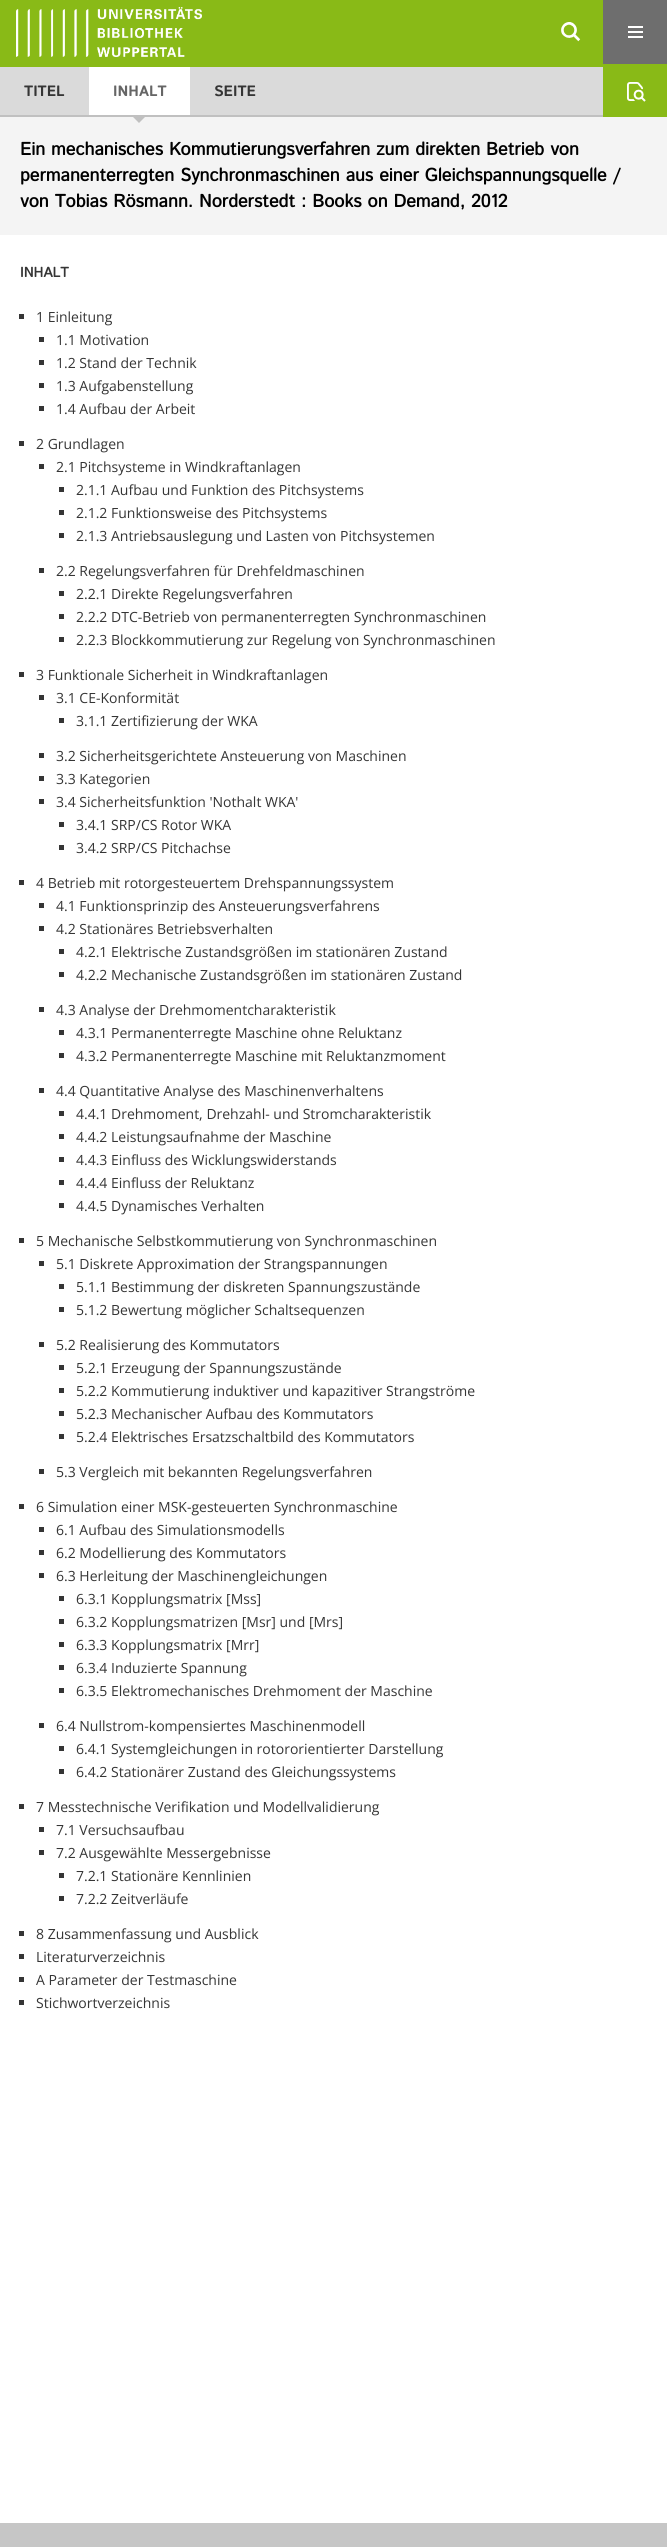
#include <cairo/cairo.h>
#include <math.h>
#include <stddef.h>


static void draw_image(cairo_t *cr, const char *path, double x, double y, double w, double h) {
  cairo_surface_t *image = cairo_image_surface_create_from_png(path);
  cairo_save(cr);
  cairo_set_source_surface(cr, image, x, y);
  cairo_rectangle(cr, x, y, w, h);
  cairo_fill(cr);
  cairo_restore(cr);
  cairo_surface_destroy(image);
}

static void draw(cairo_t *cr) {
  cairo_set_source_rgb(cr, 1, 1, 1);
  cairo_paint(cr);
  cairo_set_source_rgb(cr, 137 / 255.0, 186 / 255.0, 23 / 255.0);
  cairo_rectangle(cr, 0, 0, 603, 64);
  cairo_fill(cr);
  draw_image(cr, "images/1.png", 16, 7, 186, 50);
  draw_image(cr, "images/2.png", 561, 22, 20, 20);
  cairo_set_source_rgb(cr, 110 / 255.0, 110 / 255.0, 110 / 255.0);
  cairo_rectangle(cr, 603, 0, 64, 64);
  cairo_fill(cr);
  draw_image(cr, "images/3.png", 628, 26, 15, 12);
  cairo_set_source_rgb(cr, 137 / 255.0, 186 / 255.0, 23 / 255.0);
  cairo_rectangle(cr, 0, 64, 667, 3);
  cairo_fill(cr);
  cairo_set_source_rgb(cr, 218 / 255.0, 218 / 255.0, 218 / 255.0);
  cairo_rectangle(cr, 0, 67, 603, 48);
  cairo_fill(cr);
  cairo_set_source_rgb(cr, 192 / 255.0, 192 / 255.0, 192 / 255.0);
  cairo_rectangle(cr, 0, 115, 603, 2);
  cairo_fill(cr);
  cairo_set_source_rgb(cr, 1, 1, 1);
  cairo_rectangle(cr, 89, 67, 101, 48);
  cairo_fill(cr);
  cairo_set_source_rgb(cr, 244 / 255.0, 244 / 255.0, 244 / 255.0);
  cairo_rectangle(cr, 0, 117, 667, 118);
  cairo_fill(cr);
  cairo_set_source_rgb(cr, 192 / 255.0, 192 / 255.0, 192 / 255.0);
  cairo_new_path(cr);
  cairo_move_to(cr, 131, 115);
  cairo_line_to(cr, 147, 115);
  cairo_line_to(cr, 139, 123);
  cairo_close_path(cr);
  cairo_fill(cr);
  cairo_set_source_rgb(cr, 137 / 255.0, 186 / 255.0, 23 / 255.0);
  cairo_rectangle(cr, 603, 67, 64, 50);
  cairo_fill(cr);
  draw_image(cr, "images/4.png", 627, 82, 19, 20);
  cairo_set_source_rgb(cr, 53 / 255.0, 53 / 255.0, 53 / 255.0);
  cairo_rectangle(cr, 19, 314, 5, 5);
  cairo_fill(cr);
  cairo_rectangle(cr, 39, 337, 5, 5);
  cairo_fill(cr);
  cairo_rectangle(cr, 39, 360, 5, 5);
  cairo_fill(cr);
  cairo_rectangle(cr, 39, 383, 5, 5);
  cairo_fill(cr);
  cairo_rectangle(cr, 39, 406, 5, 5);
  cairo_fill(cr);
  cairo_rectangle(cr, 19, 441, 5, 5);
  cairo_fill(cr);
  cairo_rectangle(cr, 39, 464, 5, 5);
  cairo_fill(cr);
  cairo_rectangle(cr, 59, 487, 5, 5);
  cairo_fill(cr);
  cairo_rectangle(cr, 59, 510, 5, 5);
  cairo_fill(cr);
  cairo_rectangle(cr, 59, 533, 5, 5);
  cairo_fill(cr);
  cairo_rectangle(cr, 39, 568, 5, 5);
  cairo_fill(cr);
  cairo_rectangle(cr, 59, 591, 5, 5);
  cairo_fill(cr);
  cairo_rectangle(cr, 59, 614, 5, 5);
  cairo_fill(cr);
  cairo_rectangle(cr, 59, 637, 5, 5);
  cairo_fill(cr);
  cairo_rectangle(cr, 19, 672, 5, 5);
  cairo_fill(cr);
  cairo_rectangle(cr, 39, 695, 5, 5);
  cairo_fill(cr);
  cairo_rectangle(cr, 59, 718, 5, 5);
  cairo_fill(cr);
  cairo_rectangle(cr, 39, 753, 5, 5);
  cairo_fill(cr);
  cairo_rectangle(cr, 39, 776, 5, 5);
  cairo_fill(cr);
  cairo_rectangle(cr, 39, 799, 5, 5);
  cairo_fill(cr);
  cairo_rectangle(cr, 59, 822, 5, 5);
  cairo_fill(cr);
  cairo_rectangle(cr, 59, 845, 5, 5);
  cairo_fill(cr);
  cairo_rectangle(cr, 19, 880, 5, 5);
  cairo_fill(cr);
  cairo_rectangle(cr, 39, 903, 5, 5);
  cairo_fill(cr);
  cairo_rectangle(cr, 39, 926, 5, 5);
  cairo_fill(cr);
  cairo_rectangle(cr, 59, 949, 5, 5);
  cairo_fill(cr);
  cairo_rectangle(cr, 59, 972, 5, 5);
  cairo_fill(cr);
  cairo_rectangle(cr, 39, 1007, 5, 5);
  cairo_fill(cr);
  cairo_rectangle(cr, 59, 1030, 5, 5);
  cairo_fill(cr);
  cairo_rectangle(cr, 59, 1053, 5, 5);
  cairo_fill(cr);
  cairo_rectangle(cr, 39, 1088, 5, 5);
  cairo_fill(cr);
  cairo_rectangle(cr, 59, 1111, 5, 5);
  cairo_fill(cr);
  cairo_rectangle(cr, 59, 1134, 5, 5);
  cairo_fill(cr);
  cairo_rectangle(cr, 59, 1157, 5, 5);
  cairo_fill(cr);
  cairo_rectangle(cr, 59, 1180, 5, 5);
  cairo_fill(cr);
  cairo_rectangle(cr, 59, 1203, 5, 5);
  cairo_fill(cr);
  cairo_rectangle(cr, 19, 1238, 5, 5);
  cairo_fill(cr);
  cairo_rectangle(cr, 39, 1261, 5, 5);
  cairo_fill(cr);
  cairo_rectangle(cr, 59, 1284, 5, 5);
  cairo_fill(cr);
  cairo_rectangle(cr, 59, 1307, 5, 5);
  cairo_fill(cr);
  cairo_rectangle(cr, 39, 1342, 5, 5);
  cairo_fill(cr);
  cairo_rectangle(cr, 59, 1365, 5, 5);
  cairo_fill(cr);
  cairo_rectangle(cr, 59, 1388, 5, 5);
  cairo_fill(cr);
  cairo_rectangle(cr, 59, 1411, 5, 5);
  cairo_fill(cr);
  cairo_rectangle(cr, 59, 1434, 5, 5);
  cairo_fill(cr);
  cairo_rectangle(cr, 39, 1469, 5, 5);
  cairo_fill(cr);
  cairo_rectangle(cr, 19, 1504, 5, 5);
  cairo_fill(cr);
  cairo_rectangle(cr, 39, 1527, 5, 5);
  cairo_fill(cr);
  cairo_rectangle(cr, 39, 1550, 5, 5);
  cairo_fill(cr);
  cairo_rectangle(cr, 39, 1573, 5, 5);
  cairo_fill(cr);
  cairo_rectangle(cr, 59, 1596, 5, 5);
  cairo_fill(cr);
  cairo_rectangle(cr, 59, 1619, 5, 5);
  cairo_fill(cr);
  cairo_rectangle(cr, 59, 1642, 5, 5);
  cairo_fill(cr);
  cairo_rectangle(cr, 59, 1665, 5, 5);
  cairo_fill(cr);
  cairo_rectangle(cr, 59, 1688, 5, 5);
  cairo_fill(cr);
  cairo_rectangle(cr, 39, 1723, 5, 5);
  cairo_fill(cr);
  cairo_rectangle(cr, 59, 1746, 5, 5);
  cairo_fill(cr);
  cairo_rectangle(cr, 59, 1769, 5, 5);
  cairo_fill(cr);
  cairo_rectangle(cr, 19, 1804, 5, 5);
  cairo_fill(cr);
  cairo_rectangle(cr, 39, 1827, 5, 5);
  cairo_fill(cr);
  cairo_rectangle(cr, 39, 1850, 5, 5);
  cairo_fill(cr);
  cairo_rectangle(cr, 59, 1873, 5, 5);
  cairo_fill(cr);
  cairo_rectangle(cr, 59, 1896, 5, 5);
  cairo_fill(cr);
  cairo_rectangle(cr, 19, 1931, 5, 5);
  cairo_fill(cr);
  cairo_rectangle(cr, 19, 1954, 5, 5);
  cairo_fill(cr);
  cairo_rectangle(cr, 19, 1977, 5, 5);
  cairo_fill(cr);
  cairo_rectangle(cr, 19, 2000, 5, 5);
  cairo_fill(cr);
  cairo_set_source_rgb(cr, 198 / 255.0, 198 / 255.0, 198 / 255.0);
  cairo_rectangle(cr, 0, 2523, 667, 24);
  cairo_fill(cr);
  cairo_select_font_face(cr, "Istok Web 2", CAIRO_FONT_SLANT_NORMAL, CAIRO_FONT_WEIGHT_BOLD);
  cairo_set_font_size(cr, 15);
  cairo_set_source_rgb(cr, 53 / 255.0, 53 / 255.0, 53 / 255.0);
  cairo_move_to(cr, 24, 96);
  cairo_show_text(cr, "TITEL");
  cairo_set_source_rgb(cr, 102 / 255.0, 102 / 255.0, 102 / 255.0);
  cairo_move_to(cr, 113, 96);
  cairo_show_text(cr, "INHALT");
  cairo_set_source_rgb(cr, 53 / 255.0, 53 / 255.0, 53 / 255.0);
  cairo_move_to(cr, 214, 96);
  cairo_show_text(cr, "SEITE");
  cairo_select_font_face(cr, "Istok Web", CAIRO_FONT_SLANT_NORMAL, CAIRO_FONT_WEIGHT_BOLD);
  cairo_set_font_size(cr, 18);
  cairo_set_source_rgb(cr, 0, 0, 0);
  cairo_move_to(cr, 20, 155);
  cairo_show_text(cr, "Ein mechanisches Kommutierungsverfahren zum direkten Betrieb von");
  cairo_move_to(cr, 20, 181);
  cairo_show_text(cr, "permanenterregten Synchronmaschinen aus einer Gleichspannungsquelle /");
  cairo_move_to(cr, 20, 207);
  cairo_show_text(cr, "von Tobias Rösmann. Norderstedt : Books on Demand, 2012");
  cairo_set_font_size(cr, 14);
  cairo_set_source_rgb(cr, 53 / 255.0, 53 / 255.0, 53 / 255.0);
  cairo_move_to(cr, 20, 277);
  cairo_show_text(cr, "INHALT");
  cairo_select_font_face(cr, "Open Sans", CAIRO_FONT_SLANT_NORMAL, CAIRO_FONT_WEIGHT_NORMAL);
  cairo_move_to(cr, 36, 322);
  cairo_show_text(cr, "1 Einleitung");
  cairo_move_to(cr, 56, 345);
  cairo_show_text(cr, "1.1 Motivation");
  cairo_move_to(cr, 56, 368);
  cairo_show_text(cr, "1.2 Stand der Technik");
  cairo_move_to(cr, 56, 391);
  cairo_show_text(cr, "1.3 Aufgabenstellung");
  cairo_move_to(cr, 56, 414);
  cairo_show_text(cr, "1.4 Aufbau der Arbeit");
  cairo_move_to(cr, 36, 449);
  cairo_show_text(cr, "2 Grundlagen");
  cairo_move_to(cr, 56, 472);
  cairo_show_text(cr, "2.1 Pitchsysteme in Windkraftanlagen");
  cairo_move_to(cr, 76, 495);
  cairo_show_text(cr, "2.1.1 Aufbau und Funktion des Pitchsystems");
  cairo_move_to(cr, 76, 518);
  cairo_show_text(cr, "2.1.2 Funktionsweise des Pitchsystems");
  cairo_move_to(cr, 76, 541);
  cairo_show_text(cr, "2.1.3 Antriebsauslegung und Lasten von Pitchsystemen");
  cairo_move_to(cr, 56, 576);
  cairo_show_text(cr, "2.2 Regelungsverfahren für Drehfeldmaschinen");
  cairo_move_to(cr, 76, 599);
  cairo_show_text(cr, "2.2.1 Direkte Regelungsverfahren");
  cairo_move_to(cr, 76, 622);
  cairo_show_text(cr, "2.2.2 DTC-Betrieb von permanenterregten Synchronmaschinen");
  cairo_move_to(cr, 76, 645);
  cairo_show_text(cr, "2.2.3 Blockkommutierung zur Regelung von Synchronmaschinen");
  cairo_move_to(cr, 36, 680);
  cairo_show_text(cr, "3 Funktionale Sicherheit in Windkraftanlagen");
  cairo_move_to(cr, 56, 703);
  cairo_show_text(cr, "3.1 CE-Konformität");
  cairo_move_to(cr, 76, 726);
  cairo_show_text(cr, "3.1.1 Zertifizierung der WKA");
  cairo_move_to(cr, 56, 761);
  cairo_show_text(cr, "3.2 Sicherheitsgerichtete Ansteuerung von Maschinen");
  cairo_move_to(cr, 56, 784);
  cairo_show_text(cr, "3.3 Kategorien");
  cairo_move_to(cr, 56, 807);
  cairo_show_text(cr, "3.4 Sicherheitsfunktion 'Nothalt WKA'");
  cairo_move_to(cr, 76, 830);
  cairo_show_text(cr, "3.4.1 SRP/CS Rotor WKA");
  cairo_move_to(cr, 76, 853);
  cairo_show_text(cr, "3.4.2 SRP/CS Pitchachse");
  cairo_move_to(cr, 36, 888);
  cairo_show_text(cr, "4 Betrieb mit rotorgesteuertem Drehspannungssystem");
  cairo_move_to(cr, 56, 911);
  cairo_show_text(cr, "4.1 Funktionsprinzip des Ansteuerungsverfahrens");
  cairo_move_to(cr, 56, 934);
  cairo_show_text(cr, "4.2 Stationäres Betriebsverhalten");
  cairo_move_to(cr, 76, 957);
  cairo_show_text(cr, "4.2.1 Elektrische Zustandsgrößen im stationären Zustand");
  cairo_move_to(cr, 76, 980);
  cairo_show_text(cr, "4.2.2 Mechanische Zustandsgrößen im stationären Zustand");
  cairo_move_to(cr, 56, 1015);
  cairo_show_text(cr, "4.3 Analyse der Drehmomentcharakteristik");
  cairo_move_to(cr, 76, 1038);
  cairo_show_text(cr, "4.3.1 Permanenterregte Maschine ohne Reluktanz");
  cairo_move_to(cr, 76, 1061);
  cairo_show_text(cr, "4.3.2 Permanenterregte Maschine mit Reluktanzmoment");
  cairo_move_to(cr, 56, 1096);
  cairo_show_text(cr, "4.4 Quantitative Analyse des Maschinenverhaltens");
  cairo_move_to(cr, 76, 1119);
  cairo_show_text(cr, "4.4.1 Drehmoment, Drehzahl- und Stromcharakteristik");
  cairo_move_to(cr, 76, 1142);
  cairo_show_text(cr, "4.4.2 Leistungsaufnahme der Maschine");
  cairo_move_to(cr, 76, 1165);
  cairo_show_text(cr, "4.4.3 Einfluss des Wicklungswiderstands");
  cairo_move_to(cr, 76, 1188);
  cairo_show_text(cr, "4.4.4 Einfluss der Reluktanz");
  cairo_move_to(cr, 76, 1211);
  cairo_show_text(cr, "4.4.5 Dynamisches Verhalten");
  cairo_move_to(cr, 36, 1246);
  cairo_show_text(cr, "5 Mechanische Selbstkommutierung von Synchronmaschinen");
  cairo_move_to(cr, 56, 1269);
  cairo_show_text(cr, "5.1 Diskrete Approximation der Strangspannungen");
  cairo_move_to(cr, 76, 1292);
  cairo_show_text(cr, "5.1.1 Bestimmung der diskreten Spannungszustände");
  cairo_move_to(cr, 76, 1315);
  cairo_show_text(cr, "5.1.2 Bewertung möglicher Schaltsequenzen");
  cairo_move_to(cr, 56, 1350);
  cairo_show_text(cr, "5.2 Realisierung des Kommutators");
  cairo_move_to(cr, 76, 1373);
  cairo_show_text(cr, "5.2.1 Erzeugung der Spannungszustände");
  cairo_move_to(cr, 76, 1396);
  cairo_show_text(cr, "5.2.2 Kommutierung induktiver und kapazitiver Strangströme");
  cairo_move_to(cr, 76, 1419);
  cairo_show_text(cr, "5.2.3 Mechanischer Aufbau des Kommutators");
  cairo_move_to(cr, 76, 1442);
  cairo_show_text(cr, "5.2.4 Elektrisches Ersatzschaltbild des Kommutators");
  cairo_move_to(cr, 56, 1477);
  cairo_show_text(cr, "5.3 Vergleich mit bekannten Regelungsverfahren");
  cairo_move_to(cr, 36, 1512);
  cairo_show_text(cr, "6 Simulation einer MSK-gesteuerten Synchronmaschine");
  cairo_move_to(cr, 56, 1535);
  cairo_show_text(cr, "6.1 Aufbau des Simulationsmodells");
  cairo_move_to(cr, 56, 1558);
  cairo_show_text(cr, "6.2 Modellierung des Kommutators");
  cairo_move_to(cr, 56, 1581);
  cairo_show_text(cr, "6.3 Herleitung der Maschinengleichungen");
  cairo_move_to(cr, 76, 1604);
  cairo_show_text(cr, "6.3.1 Kopplungsmatrix [Mss]");
  cairo_move_to(cr, 76, 1627);
  cairo_show_text(cr, "6.3.2 Kopplungsmatrizen [Msr] und [Mrs]");
  cairo_move_to(cr, 76, 1650);
  cairo_show_text(cr, "6.3.3 Kopplungsmatrix [Mrr]");
  cairo_move_to(cr, 76, 1673);
  cairo_show_text(cr, "6.3.4 Induzierte Spannung");
  cairo_move_to(cr, 76, 1696);
  cairo_show_text(cr, "6.3.5 Elektromechanisches Drehmoment der Maschine");
  cairo_move_to(cr, 56, 1731);
  cairo_show_text(cr, "6.4 Nullstrom-kompensiertes Maschinenmodell");
  cairo_move_to(cr, 76, 1754);
  cairo_show_text(cr, "6.4.1 Systemgleichungen in rotororientierter Darstellung");
  cairo_move_to(cr, 76, 1777);
  cairo_show_text(cr, "6.4.2 Stationärer Zustand des Gleichungssystems");
  cairo_move_to(cr, 36, 1812);
  cairo_show_text(cr, "7 Messtechnische Verifikation und Modellvalidierung");
  cairo_move_to(cr, 56, 1835);
  cairo_show_text(cr, "7.1 Versuchsaufbau");
  cairo_move_to(cr, 56, 1858);
  cairo_show_text(cr, "7.2 Ausgewählte Messergebnisse");
  cairo_move_to(cr, 76, 1881);
  cairo_show_text(cr, "7.2.1 Stationäre Kennlinien");
  cairo_move_to(cr, 76, 1904);
  cairo_show_text(cr, "7.2.2 Zeitverläufe");
  cairo_move_to(cr, 36, 1939);
  cairo_show_text(cr, "8 Zusammenfassung und Ausblick");
  cairo_move_to(cr, 36, 1962);
  cairo_show_text(cr, "Literaturverzeichnis");
  cairo_move_to(cr, 36, 1985);
  cairo_show_text(cr, "A Parameter der Testmaschine");
  cairo_move_to(cr, 36, 2008);
  cairo_show_text(cr, "Stichwortverzeichnis");
}

int main(void) {
  cairo_surface_t *surface = cairo_image_surface_create(CAIRO_FORMAT_RGB24, 667, 2547);
  cairo_t *cr = cairo_create(surface);
  cairo_font_options_t *options = cairo_font_options_create();
  cairo_font_options_set_hint_metrics(options, CAIRO_HINT_METRICS_OFF);
  cairo_font_options_set_hint_style(options, CAIRO_HINT_STYLE_NONE);
  cairo_set_font_options(cr, options);
  cairo_set_miter_limit(cr, 4);
  draw(cr);
  cairo_surface_write_to_png(surface, "out.png");
  cairo_font_options_destroy(options);
  cairo_destroy(cr);
  cairo_surface_destroy(surface);
  return 0;
}
